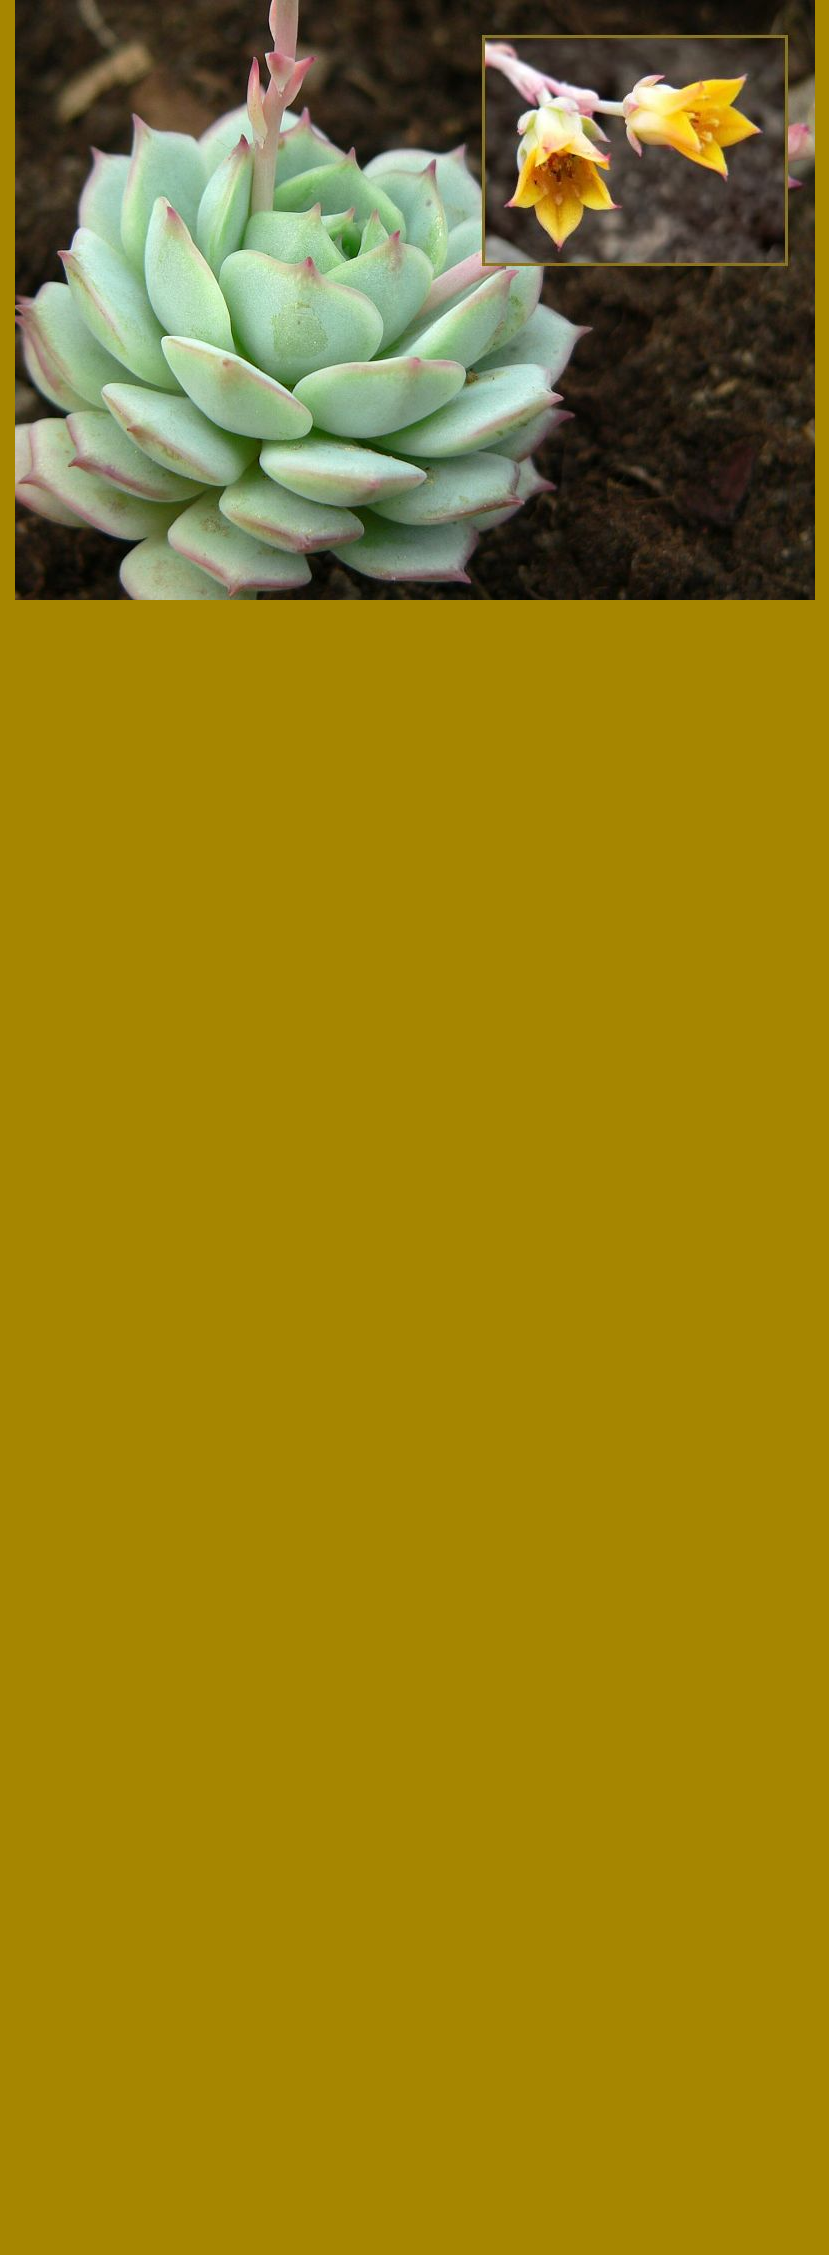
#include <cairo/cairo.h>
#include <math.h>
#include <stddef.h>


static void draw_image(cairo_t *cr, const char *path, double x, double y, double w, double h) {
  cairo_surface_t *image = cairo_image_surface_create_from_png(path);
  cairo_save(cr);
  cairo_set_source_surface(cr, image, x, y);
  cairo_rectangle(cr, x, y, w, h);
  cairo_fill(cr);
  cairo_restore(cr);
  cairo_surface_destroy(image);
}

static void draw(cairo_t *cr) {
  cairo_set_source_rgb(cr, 166 / 255.0, 134 / 255.0, 0);
  cairo_paint(cr);
  draw_image(cr, "images/1.png", 15, 0, 800, 600);
}

int main(void) {
  cairo_surface_t *surface = cairo_image_surface_create(CAIRO_FORMAT_RGB24, 829, 2255);
  cairo_t *cr = cairo_create(surface);
  cairo_font_options_t *options = cairo_font_options_create();
  cairo_font_options_set_hint_metrics(options, CAIRO_HINT_METRICS_OFF);
  cairo_font_options_set_hint_style(options, CAIRO_HINT_STYLE_NONE);
  cairo_set_font_options(cr, options);
  cairo_set_miter_limit(cr, 4);
  draw(cr);
  cairo_surface_write_to_png(surface, "out.png");
  cairo_font_options_destroy(options);
  cairo_destroy(cr);
  cairo_surface_destroy(surface);
  return 0;
}
